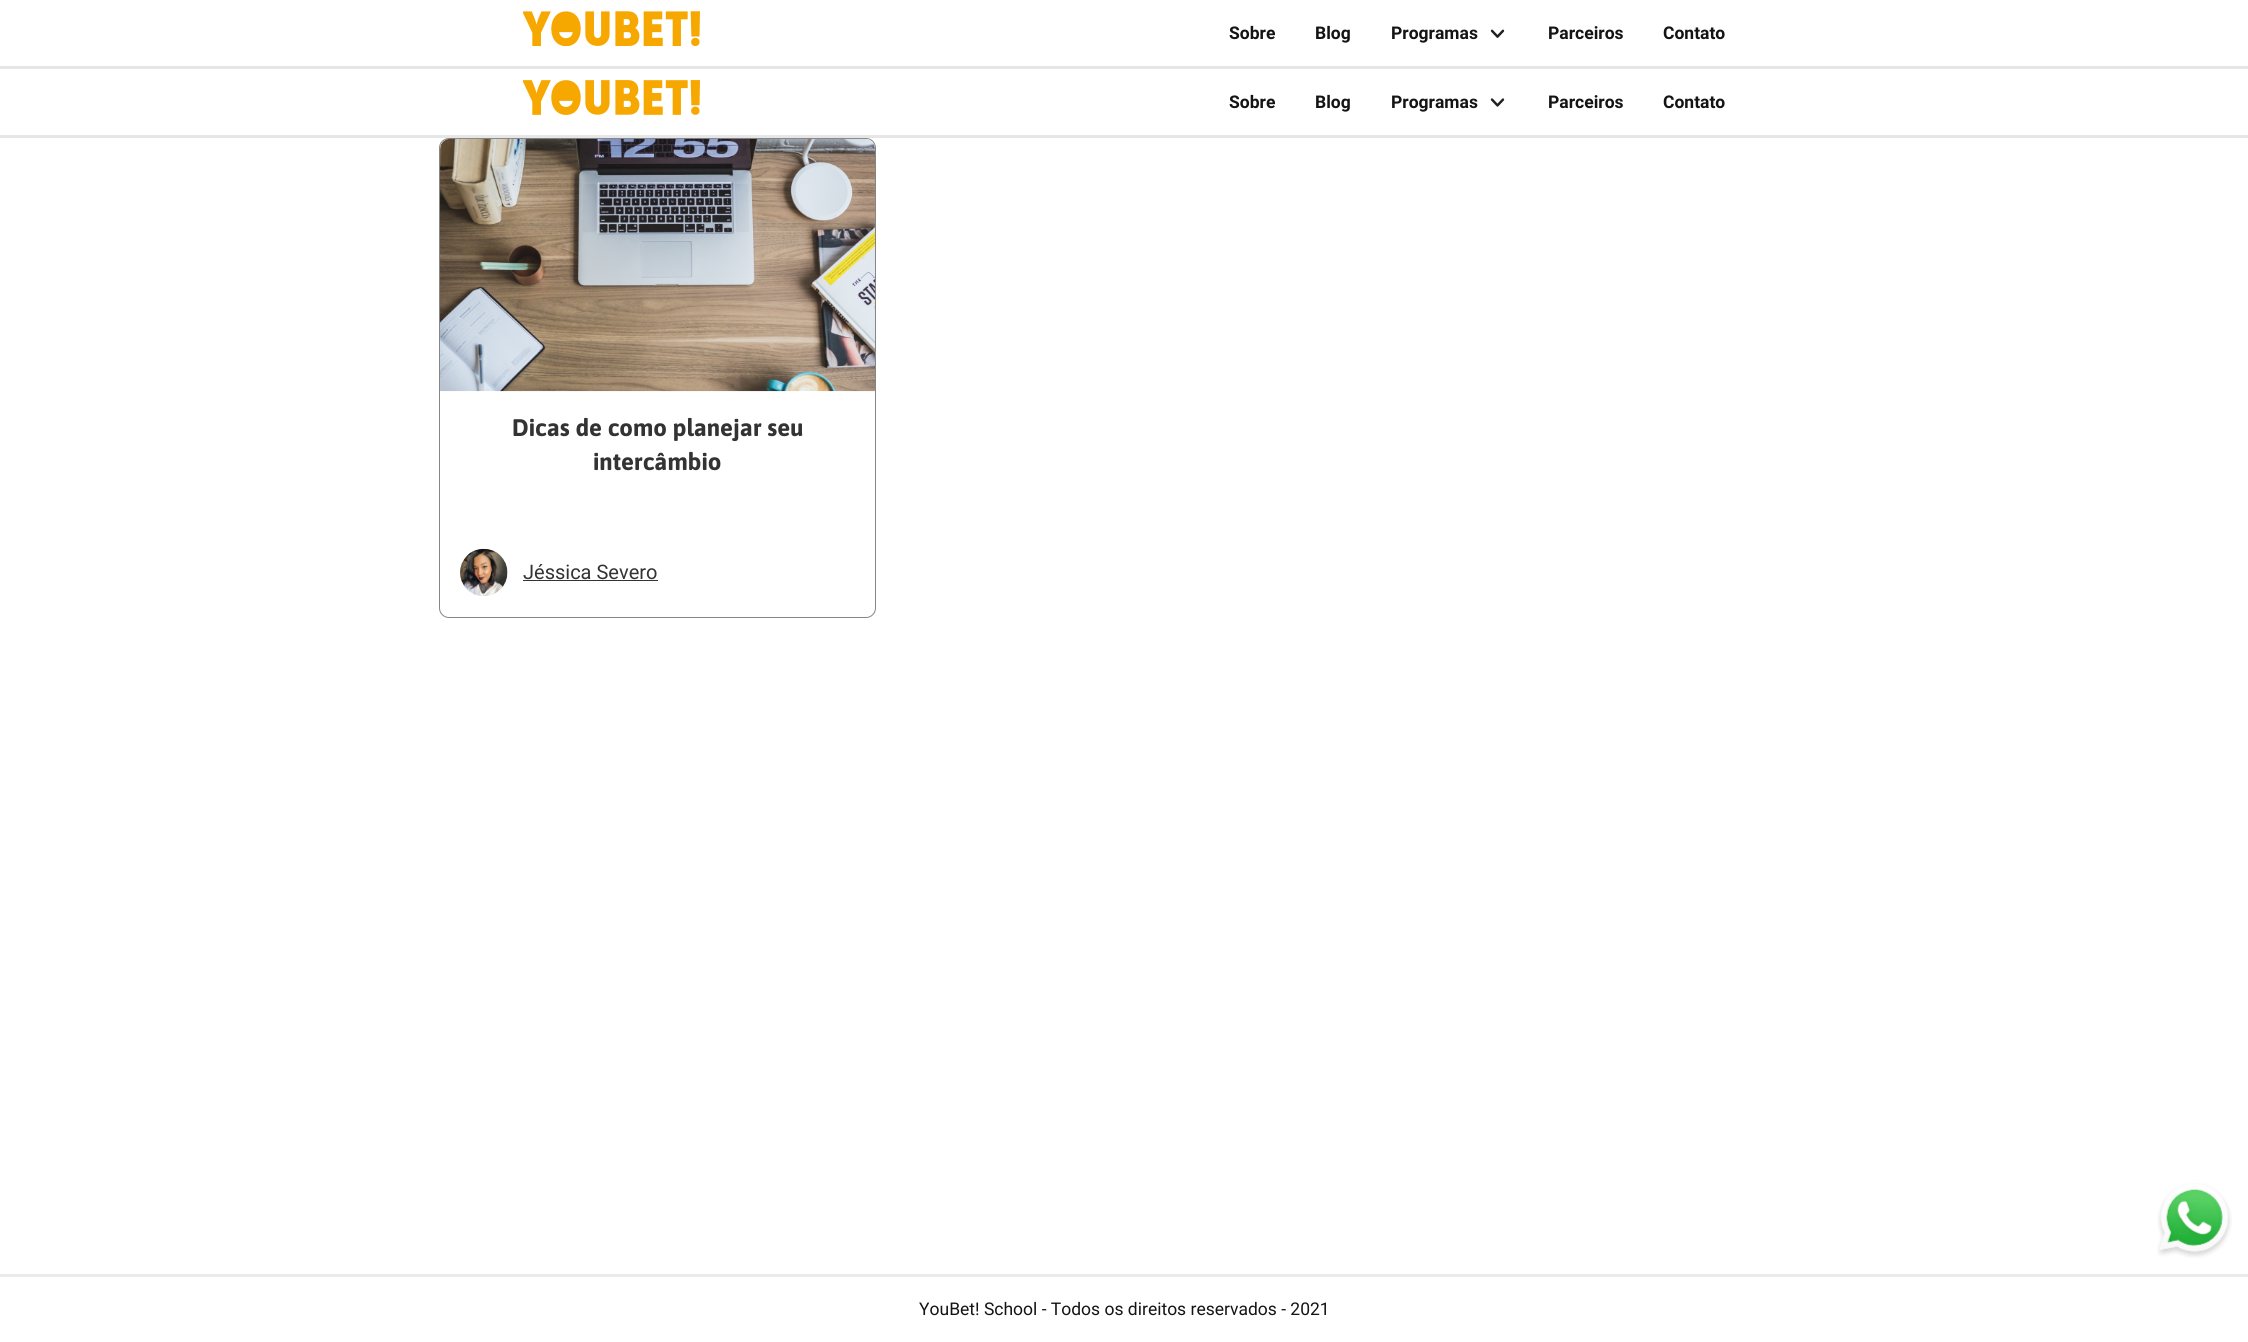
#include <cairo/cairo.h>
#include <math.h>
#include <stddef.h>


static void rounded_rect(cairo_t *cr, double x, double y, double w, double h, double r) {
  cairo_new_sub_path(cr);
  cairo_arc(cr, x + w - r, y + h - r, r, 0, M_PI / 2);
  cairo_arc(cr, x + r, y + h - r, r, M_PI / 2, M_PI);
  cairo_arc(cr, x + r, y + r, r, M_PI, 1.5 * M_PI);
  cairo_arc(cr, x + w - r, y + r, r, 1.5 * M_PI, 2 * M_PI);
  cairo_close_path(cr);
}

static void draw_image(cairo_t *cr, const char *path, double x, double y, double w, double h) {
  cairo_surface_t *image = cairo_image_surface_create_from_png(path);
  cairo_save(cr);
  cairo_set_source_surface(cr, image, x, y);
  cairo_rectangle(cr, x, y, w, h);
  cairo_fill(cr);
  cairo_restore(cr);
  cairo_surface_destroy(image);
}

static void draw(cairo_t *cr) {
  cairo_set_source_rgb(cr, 1, 1, 1);
  cairo_paint(cr);
  cairo_set_source_rgb(cr, 230 / 255.0, 230 / 255.0, 230 / 255.0);
  cairo_rectangle(cr, 0, 66, 2248, 3);
  cairo_fill(cr);
  draw_image(cr, "images/1.png", 523, 11, 177, 35);
  draw_image(cr, "images/2.png", 1490, 29, 15, 9);
  cairo_rectangle(cr, 0, 135, 2248, 3);
  cairo_fill(cr);
  draw_image(cr, "images/3.png", 523, 80, 177, 35);
  draw_image(cr, "images/4.png", 1490, 98, 15, 9);
  rounded_rect(cr, 439.5, 138.5, 436, 479, 9.5);
  cairo_set_source_rgb(cr, 133 / 255.0, 133 / 255.0, 133 / 255.0);
  cairo_set_line_width(cr, 1);
  cairo_stroke(cr);
  draw_image(cr, "images/5.png", 440, 138, 435, 254);
  draw_image(cr, "images/6.png", 460, 548, 48, 48);
  cairo_set_source_rgb(cr, 51 / 255.0, 51 / 255.0, 51 / 255.0);
  cairo_rectangle(cr, 523, 580, 135, 1);
  cairo_fill(cr);
  draw_image(cr, "images/7.png", 2157, 1183, 75, 75);
  cairo_set_source_rgb(cr, 235 / 255.0, 235 / 255.0, 235 / 255.0);
  cairo_rectangle(cr, 0, 1274, 2248, 3);
  cairo_fill(cr);
  cairo_select_font_face(cr, "Roboto", CAIRO_FONT_SLANT_NORMAL, CAIRO_FONT_WEIGHT_BOLD);
  cairo_set_font_size(cr, 17.5);
  cairo_set_source_rgb(cr, 20 / 255.0, 20 / 255.0, 20 / 255.0);
  cairo_move_to(cr, 1229, 39);
  cairo_show_text(cr, "Sobre");
  cairo_move_to(cr, 1315, 39);
  cairo_show_text(cr, "Blog");
  cairo_move_to(cr, 1391, 39);
  cairo_show_text(cr, "Programas");
  cairo_move_to(cr, 1548, 39);
  cairo_show_text(cr, "Parceiros");
  cairo_move_to(cr, 1663, 39);
  cairo_show_text(cr, "Contato");
  cairo_move_to(cr, 1229, 108);
  cairo_show_text(cr, "Sobre");
  cairo_move_to(cr, 1315, 108);
  cairo_show_text(cr, "Blog");
  cairo_move_to(cr, 1391, 108);
  cairo_show_text(cr, "Programas");
  cairo_move_to(cr, 1548, 108);
  cairo_show_text(cr, "Parceiros");
  cairo_move_to(cr, 1663, 108);
  cairo_show_text(cr, "Contato");
  cairo_select_font_face(cr, "Asap", CAIRO_FONT_SLANT_NORMAL, CAIRO_FONT_WEIGHT_BOLD);
  cairo_set_font_size(cr, 24);
  cairo_set_source_rgb(cr, 51 / 255.0, 51 / 255.0, 51 / 255.0);
  cairo_move_to(cr, 512, 436);
  cairo_show_text(cr, "Dicas de como planejar seu");
  cairo_move_to(cr, 593, 470);
  cairo_show_text(cr, "intercâmbio");
  cairo_select_font_face(cr, "Roboto", CAIRO_FONT_SLANT_NORMAL, CAIRO_FONT_WEIGHT_NORMAL);
  cairo_set_font_size(cr, 20);
  cairo_move_to(cr, 523, 579);
  cairo_show_text(cr, "Jéssica Severo");
  cairo_set_font_size(cr, 17.5);
  cairo_set_source_rgb(cr, 20 / 255.0, 20 / 255.0, 20 / 255.0);
  cairo_move_to(cr, 919, 1315);
  cairo_show_text(cr, "YouBet! School - Todos os direitos reservados - 2021");
}

int main(void) {
  cairo_surface_t *surface = cairo_image_surface_create(CAIRO_FORMAT_RGB24, 2248, 1342);
  cairo_t *cr = cairo_create(surface);
  cairo_font_options_t *options = cairo_font_options_create();
  cairo_font_options_set_hint_metrics(options, CAIRO_HINT_METRICS_OFF);
  cairo_font_options_set_hint_style(options, CAIRO_HINT_STYLE_NONE);
  cairo_set_font_options(cr, options);
  cairo_set_miter_limit(cr, 4);
  draw(cr);
  cairo_surface_write_to_png(surface, "out.png");
  cairo_font_options_destroy(options);
  cairo_destroy(cr);
  cairo_surface_destroy(surface);
  return 0;
}
